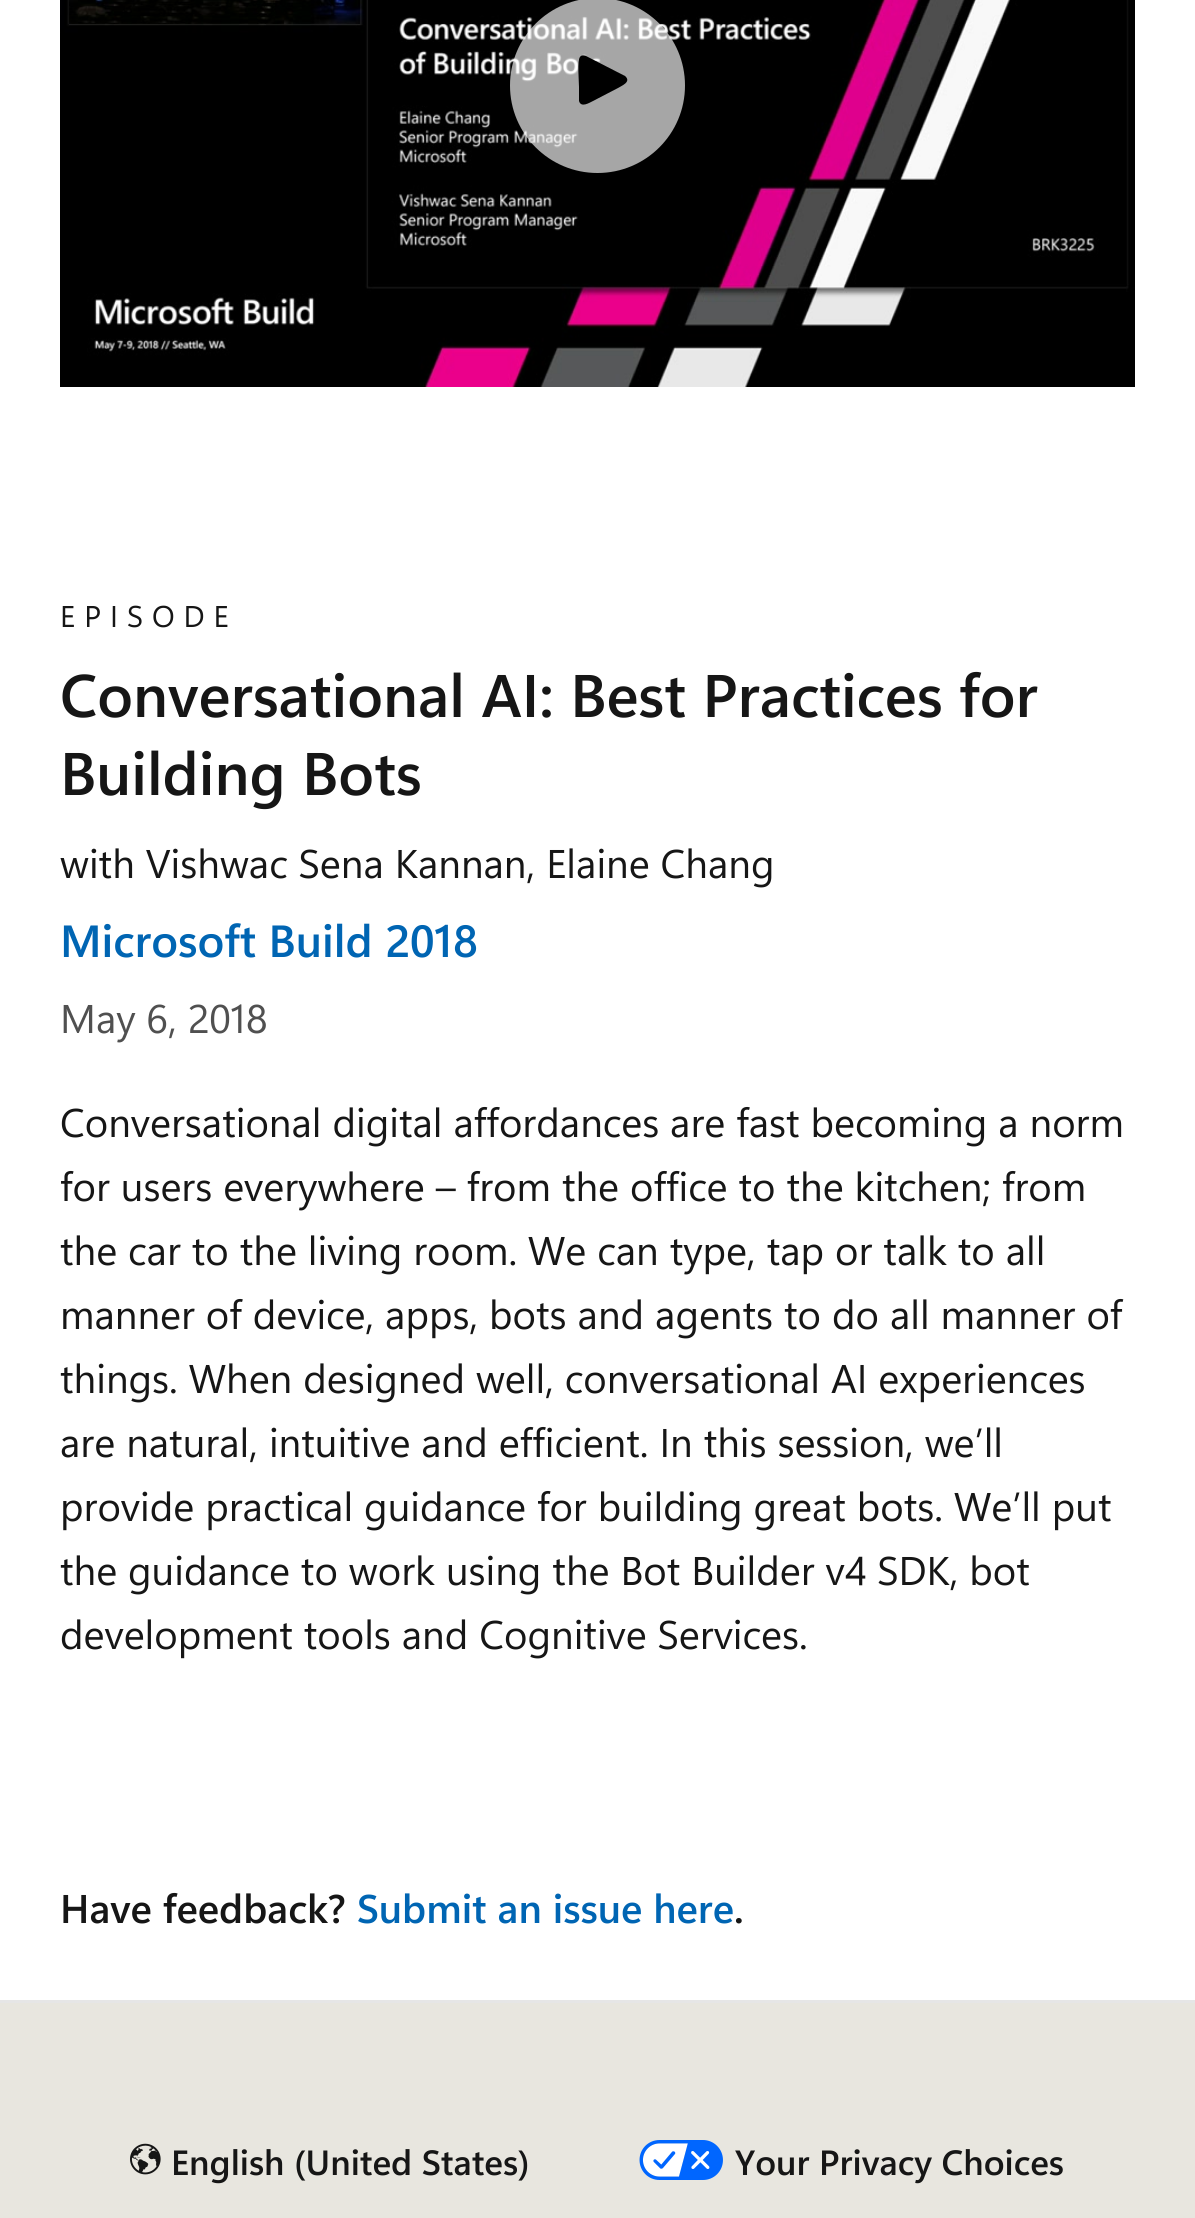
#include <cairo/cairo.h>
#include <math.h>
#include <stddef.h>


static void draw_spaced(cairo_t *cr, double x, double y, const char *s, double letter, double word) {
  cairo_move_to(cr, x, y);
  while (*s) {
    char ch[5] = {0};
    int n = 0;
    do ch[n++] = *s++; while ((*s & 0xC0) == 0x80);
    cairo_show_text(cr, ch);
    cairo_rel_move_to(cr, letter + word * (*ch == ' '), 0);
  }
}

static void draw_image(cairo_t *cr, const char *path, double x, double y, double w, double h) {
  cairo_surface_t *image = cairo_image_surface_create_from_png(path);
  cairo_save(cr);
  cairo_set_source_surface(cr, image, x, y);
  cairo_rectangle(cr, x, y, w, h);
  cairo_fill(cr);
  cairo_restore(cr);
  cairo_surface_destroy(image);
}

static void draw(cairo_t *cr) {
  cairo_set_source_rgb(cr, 1, 1, 1);
  cairo_paint(cr);
  draw_image(cr, "images/1.png", 60, 0, 1075, 387);
  cairo_set_source_rgba(cr, 1, 1, 1, 0.65);
  cairo_arc(cr, 597.5, 85.5, 87.5, 0, 2 * M_PI);
  cairo_fill(cr);
  cairo_set_source_rgb(cr, 0, 0, 0);
  cairo_new_path(cr);
  cairo_move_to(cr, 586, 56);
  cairo_line_to(cr, 625, 76);
  cairo_curve_to(cr, 632, 82, 621, 86, 618, 88);
  cairo_line_to(cr, 593, 101);
  cairo_curve_to(cr, 589, 103, 581, 108, 579, 101);
  cairo_line_to(cr, 579, 87);
  cairo_curve_to(cr, 579, 82, 577, 60, 580, 57);
  cairo_curve_to(cr, 581, 55, 584, 55, 586, 56);
  cairo_close_path(cr);
  cairo_fill(cr);
  cairo_set_source_rgb(cr, 232 / 255.0, 230 / 255.0, 223 / 255.0);
  cairo_rectangle(cr, 0, 2003, 1195, 215);
  cairo_fill(cr);
  cairo_set_source_rgb(cr, 230 / 255.0, 230 / 255.0, 230 / 255.0);
  cairo_rectangle(cr, 0, 2000, 1195, 3);
  cairo_fill(cr);
  draw_image(cr, "images/2.png", 130, 2143, 31, 32);
  draw_image(cr, "images/3.png", 639, 2140, 84, 40);
  cairo_select_font_face(cr, "Segoe UI", CAIRO_FONT_SLANT_NORMAL, CAIRO_FONT_WEIGHT_NORMAL);
  cairo_set_font_size(cr, 30);
  cairo_set_source_rgb(cr, 22 / 255.0, 22 / 255.0, 22 / 255.0);
  draw_spaced(cr, 60, 627, "EPISODE", 9, 0);
  cairo_select_font_face(cr, "Segoe UI SemiBold", CAIRO_FONT_SLANT_NORMAL, CAIRO_FONT_WEIGHT_NORMAL);
  cairo_set_font_size(cr, 60);
  cairo_move_to(cr, 60, 717);
  cairo_show_text(cr, "Conversational AI: Best Practices for");
  cairo_move_to(cr, 60, 795);
  cairo_show_text(cr, "Building Bots");
  cairo_select_font_face(cr, "Segoe UI", CAIRO_FONT_SLANT_NORMAL, CAIRO_FONT_WEIGHT_NORMAL);
  cairo_set_font_size(cr, 40);
  cairo_move_to(cr, 60, 878);
  cairo_show_text(cr, "with Vishwac Sena Kannan, Elaine Chang");
  cairo_select_font_face(cr, "Segoe UI SemiBold", CAIRO_FONT_SLANT_NORMAL, CAIRO_FONT_WEIGHT_NORMAL);
  cairo_set_font_size(cr, 45);
  cairo_set_source_rgb(cr, 0, 101 / 255.0, 179 / 255.0);
  cairo_move_to(cr, 60, 957);
  cairo_show_text(cr, "Microsoft Build 2018");
  cairo_select_font_face(cr, "Segoe UI", CAIRO_FONT_SLANT_NORMAL, CAIRO_FONT_WEIGHT_NORMAL);
  cairo_set_font_size(cr, 40);
  cairo_set_source_rgb(cr, 80 / 255.0, 80 / 255.0, 80 / 255.0);
  cairo_move_to(cr, 60, 1033);
  cairo_show_text(cr, "May 6, 2018");
  cairo_set_source_rgb(cr, 22 / 255.0, 22 / 255.0, 22 / 255.0);
  cairo_move_to(cr, 60, 1137);
  cairo_show_text(cr, "Conversational digital affordances are fast becoming a norm");
  cairo_move_to(cr, 60, 1201);
  cairo_show_text(cr, "for users everywhere – from the office to the kitchen; from");
  cairo_move_to(cr, 60, 1265);
  cairo_show_text(cr, "the car to the living room. We can type, tap or talk to all");
  cairo_move_to(cr, 60, 1329);
  cairo_show_text(cr, "manner of device, apps, bots and agents to do all manner of");
  cairo_move_to(cr, 60, 1393);
  cairo_show_text(cr, "things. When designed well, conversational AI experiences");
  cairo_move_to(cr, 60, 1457);
  cairo_show_text(cr, "are natural, intuitive and efficient. In this session, we’ll");
  cairo_move_to(cr, 60, 1521);
  cairo_show_text(cr, "provide practical guidance for building great bots. We’ll put");
  cairo_move_to(cr, 60, 1585);
  cairo_show_text(cr, "the guidance to work using the Bot Builder v4 SDK, bot");
  cairo_move_to(cr, 60, 1649);
  cairo_show_text(cr, "development tools and Cognitive Services.");
  cairo_select_font_face(cr, "Segoe UI SemiBold", CAIRO_FONT_SLANT_NORMAL, CAIRO_FONT_WEIGHT_NORMAL);
  cairo_move_to(cr, 60, 1923);
  cairo_show_text(cr, "Have feedback?");
  cairo_set_source_rgb(cr, 0, 101 / 255.0, 179 / 255.0);
  cairo_move_to(cr, 357, 1923);
  cairo_show_text(cr, "Submit an issue here");
  cairo_set_source_rgb(cr, 22 / 255.0, 22 / 255.0, 22 / 255.0);
  cairo_move_to(cr, 734, 1923);
  cairo_show_text(cr, ".");
  cairo_set_font_size(cr, 35);
  cairo_move_to(cr, 171, 2175);
  cairo_show_text(cr, "English (United States)");
  cairo_move_to(cr, 735, 2175);
  cairo_show_text(cr, "Your Privacy Choices");
}

int main(void) {
  cairo_surface_t *surface = cairo_image_surface_create(CAIRO_FORMAT_RGB24, 1195, 2218);
  cairo_t *cr = cairo_create(surface);
  cairo_font_options_t *options = cairo_font_options_create();
  cairo_font_options_set_hint_metrics(options, CAIRO_HINT_METRICS_OFF);
  cairo_font_options_set_hint_style(options, CAIRO_HINT_STYLE_NONE);
  cairo_set_font_options(cr, options);
  cairo_set_miter_limit(cr, 4);
  draw(cr);
  cairo_surface_write_to_png(surface, "out.png");
  cairo_font_options_destroy(options);
  cairo_destroy(cr);
  cairo_surface_destroy(surface);
  return 0;
}
